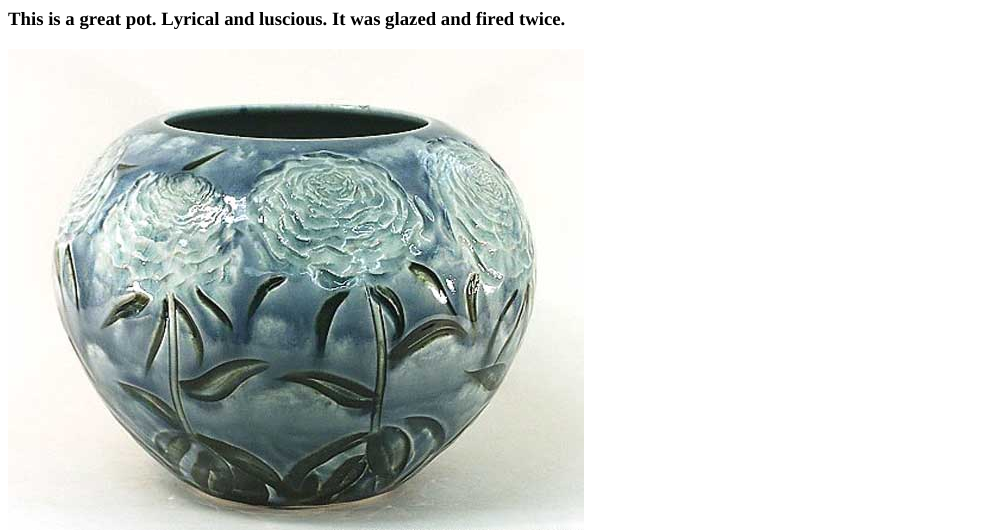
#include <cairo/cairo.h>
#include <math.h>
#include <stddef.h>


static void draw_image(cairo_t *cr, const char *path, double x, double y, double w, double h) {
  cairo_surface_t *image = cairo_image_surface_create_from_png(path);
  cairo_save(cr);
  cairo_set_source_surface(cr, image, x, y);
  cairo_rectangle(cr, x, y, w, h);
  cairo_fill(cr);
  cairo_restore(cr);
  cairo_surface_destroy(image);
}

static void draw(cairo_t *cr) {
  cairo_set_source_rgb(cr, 1, 1, 1);
  cairo_paint(cr);
  draw_image(cr, "images/1.png", 8, 49, 576, 481);
  cairo_select_font_face(cr, "Liberation Serif", CAIRO_FONT_SLANT_NORMAL, CAIRO_FONT_WEIGHT_BOLD);
  cairo_set_font_size(cr, 18.75);
  cairo_set_source_rgb(cr, 0, 0, 0);
  cairo_move_to(cr, 8, 25);
  cairo_show_text(cr, "This is a great pot. Lyrical and luscious. It was glazed and fired twice.");
}

int main(void) {
  cairo_surface_t *surface = cairo_image_surface_create(CAIRO_FORMAT_RGB24, 1006, 530);
  cairo_t *cr = cairo_create(surface);
  cairo_font_options_t *options = cairo_font_options_create();
  cairo_font_options_set_hint_metrics(options, CAIRO_HINT_METRICS_OFF);
  cairo_font_options_set_hint_style(options, CAIRO_HINT_STYLE_NONE);
  cairo_set_font_options(cr, options);
  cairo_set_miter_limit(cr, 4);
  draw(cr);
  cairo_surface_write_to_png(surface, "out.png");
  cairo_font_options_destroy(options);
  cairo_destroy(cr);
  cairo_surface_destroy(surface);
  return 0;
}
